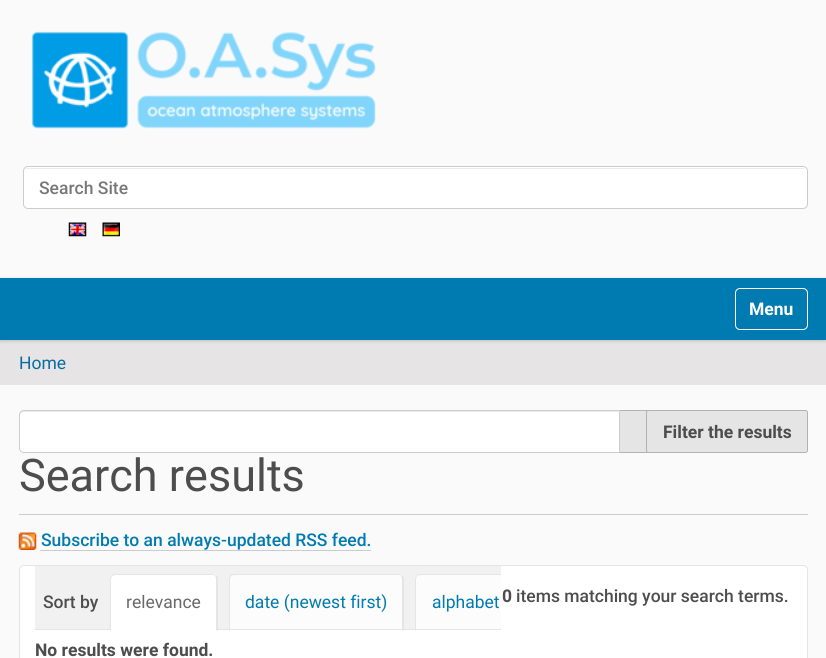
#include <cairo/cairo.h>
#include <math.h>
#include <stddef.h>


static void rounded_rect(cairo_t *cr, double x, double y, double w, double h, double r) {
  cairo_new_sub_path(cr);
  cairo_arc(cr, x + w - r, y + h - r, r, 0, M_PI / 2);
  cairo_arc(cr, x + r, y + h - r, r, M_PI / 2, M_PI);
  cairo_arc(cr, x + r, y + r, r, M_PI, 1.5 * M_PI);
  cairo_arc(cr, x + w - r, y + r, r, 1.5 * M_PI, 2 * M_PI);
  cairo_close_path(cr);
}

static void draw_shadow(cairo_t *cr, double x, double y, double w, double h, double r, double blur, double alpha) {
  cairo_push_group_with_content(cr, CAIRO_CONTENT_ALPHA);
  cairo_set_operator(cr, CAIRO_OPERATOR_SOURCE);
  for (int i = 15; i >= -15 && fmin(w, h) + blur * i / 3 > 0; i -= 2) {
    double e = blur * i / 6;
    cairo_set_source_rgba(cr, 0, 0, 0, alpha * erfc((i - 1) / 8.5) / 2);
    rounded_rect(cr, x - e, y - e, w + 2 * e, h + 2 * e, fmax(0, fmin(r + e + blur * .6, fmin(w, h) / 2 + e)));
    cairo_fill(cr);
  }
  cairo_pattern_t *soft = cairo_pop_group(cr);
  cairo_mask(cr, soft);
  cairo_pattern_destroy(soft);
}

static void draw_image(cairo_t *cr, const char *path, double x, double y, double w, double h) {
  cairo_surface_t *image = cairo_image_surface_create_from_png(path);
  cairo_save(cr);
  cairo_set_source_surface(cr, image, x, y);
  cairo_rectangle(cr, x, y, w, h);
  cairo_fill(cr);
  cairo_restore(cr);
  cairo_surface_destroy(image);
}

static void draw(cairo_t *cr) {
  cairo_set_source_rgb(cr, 250 / 255.0, 250 / 255.0, 250 / 255.0);
  cairo_paint(cr);
  draw_image(cr, "images/1.png", 31, 31, 345, 98);
  cairo_set_source_rgb(cr, 1, 1, 1);
  rounded_rect(cr, 23, 166, 785, 43, 5);
  cairo_fill(cr);
  cairo_set_source_rgb(cr, 236 / 255.0, 236 / 255.0, 236 / 255.0);
  cairo_new_path(cr);
  cairo_move_to(cr, 28, 169);
  cairo_line_to(cr, 802, 169);
  cairo_curve_to(cr, 804, 169, 805, 169, 806, 170);
  cairo_curve_to(cr, 805, 169, 804, 168, 802, 168);
  cairo_line_to(cr, 28, 168);
  cairo_curve_to(cr, 26, 168, 25, 169, 24, 170);
  cairo_curve_to(cr, 25, 169, 26, 169, 28, 169);
  cairo_close_path(cr);
  cairo_fill(cr);
  rounded_rect(cr, 23.5, 166.5, 784, 42, 4.5);
  cairo_set_source_rgb(cr, 204 / 255.0, 204 / 255.0, 204 / 255.0);
  cairo_set_line_width(cr, 1);
  cairo_stroke(cr);
  draw_image(cr, "images/2.png", 68, 222, 19, 15);
  draw_image(cr, "images/3.png", 102, 222, 18, 15);
  cairo_set_source_rgb(cr, 230 / 255.0, 228 / 255.0, 228 / 255.0);
  cairo_rectangle(cr, 0, 340, 826, 45);
  cairo_fill(cr);
  cairo_set_source_rgb(cr, 0, 0, 0);
  draw_shadow(cr, 0, 279, 826, 62, 0, 2, 0.17);
  cairo_set_source_rgb(cr, 0, 123 / 255.0, 177 / 255.0);
  cairo_rectangle(cr, 0, 278, 826, 62);
  cairo_fill(cr);
  rounded_rect(cr, 735.5, 288.5, 72, 41, 4.5);
  cairo_set_source_rgb(cr, 1, 1, 1);
  cairo_stroke(cr);
  cairo_set_source_rgb(cr, 229 / 255.0, 229 / 255.0, 229 / 255.0);
  cairo_rectangle(cr, 620, 411, 27, 41);
  cairo_fill(cr);
  cairo_rectangle(cr, 619.5, 410.5, 149, 42);
  cairo_set_source_rgb(cr, 178 / 255.0, 178 / 255.0, 178 / 255.0);
  cairo_stroke(cr);
  cairo_set_source_rgb(cr, 1, 1, 1);
  cairo_new_path(cr);
  cairo_move_to(cr, 24, 410);
  cairo_line_to(cr, 620, 410);
  cairo_line_to(cr, 620, 453);
  cairo_line_to(cr, 24, 453);
  cairo_curve_to(cr, 21, 453, 19, 451, 19, 448);
  cairo_line_to(cr, 19, 415);
  cairo_curve_to(cr, 19, 412, 21, 410, 24, 410);
  cairo_close_path(cr);
  cairo_fill(cr);
  cairo_set_source_rgb(cr, 236 / 255.0, 236 / 255.0, 236 / 255.0);
  cairo_new_path(cr);
  cairo_move_to(cr, 24, 412);
  cairo_line_to(cr, 619, 412);
  cairo_line_to(cr, 619, 411);
  cairo_line_to(cr, 24, 411);
  cairo_curve_to(cr, 21, 411, 20, 413, 20, 416);
  cairo_curve_to(cr, 20, 414, 22, 412, 24, 412);
  cairo_close_path(cr);
  cairo_fill(cr);
  cairo_new_path(cr);
  cairo_move_to(cr, 24, 410.5);
  cairo_line_to(cr, 619.5, 410.5);
  cairo_line_to(cr, 619.5, 452.5);
  cairo_line_to(cr, 24, 452.5);
  cairo_curve_to(cr, 21.5, 452.5, 19.5, 450.5, 19.5, 448);
  cairo_line_to(cr, 19.5, 415);
  cairo_curve_to(cr, 19.5, 412.5, 21.5, 410.5, 24, 410.5);
  cairo_close_path(cr);
  cairo_set_source_rgb(cr, 204 / 255.0, 204 / 255.0, 204 / 255.0);
  cairo_stroke(cr);
  cairo_set_source_rgb(cr, 229 / 255.0, 229 / 255.0, 229 / 255.0);
  rounded_rect(cr, 646.5, 410.5, 161, 42, 2);
  cairo_fill_preserve(cr);
  cairo_set_source_rgb(cr, 178 / 255.0, 178 / 255.0, 178 / 255.0);
  cairo_stroke(cr);
  cairo_set_source_rgb(cr, 204 / 255.0, 204 / 255.0, 204 / 255.0);
  cairo_rectangle(cr, 19, 514, 789, 1);
  cairo_fill(cr);
  draw_image(cr, "images/4.png", 18, 532, 19, 18);
  cairo_rectangle(cr, 40, 550, 331, 1);
  cairo_fill(cr);
  cairo_set_source_rgb(cr, 1, 1, 1);
  rounded_rect(cr, 19.5, 565.5, 788, 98, 4.5);
  cairo_fill_preserve(cr);
  cairo_set_source_rgb(cr, 229 / 255.0, 229 / 255.0, 229 / 255.0);
  cairo_stroke(cr);
  cairo_set_source_rgb(cr, 242 / 255.0, 241 / 255.0, 241 / 255.0);
  cairo_rectangle(cr, 35, 566, 466, 63);
  cairo_fill(cr);
  cairo_set_source_rgb(cr, 229 / 255.0, 229 / 255.0, 229 / 255.0);
  cairo_rectangle(cr, 35, 629, 380, 1);
  cairo_fill(cr);
  cairo_set_source_rgb(cr, 1, 1, 1);
  cairo_new_path(cr);
  cairo_move_to(cr, 115, 574);
  cairo_line_to(cr, 213, 574);
  cairo_curve_to(cr, 216, 574, 218, 576, 218, 579);
  cairo_line_to(cr, 218, 630);
  cairo_line_to(cr, 110, 630);
  cairo_line_to(cr, 110, 579);
  cairo_curve_to(cr, 110, 576, 112, 574, 115, 574);
  cairo_close_path(cr);
  cairo_fill(cr);
  cairo_set_source_rgb(cr, 229 / 255.0, 229 / 255.0, 229 / 255.0);
  cairo_new_path(cr);
  cairo_move_to(cr, 115, 574);
  cairo_curve_to(cr, 114, 574, 112, 574, 112, 575);
  cairo_line_to(cr, 112, 576);
  cairo_line_to(cr, 115, 575);
  cairo_line_to(cr, 212, 575);
  cairo_curve_to(cr, 213, 575, 214, 575, 215, 576);
  cairo_line_to(cr, 216, 575);
  cairo_line_to(cr, 212, 574);
  cairo_close_path(cr);
  cairo_fill(cr);
  cairo_new_path(cr);
  cairo_move_to(cr, 216, 575);
  cairo_line_to(cr, 218, 577);
  cairo_line_to(cr, 218, 631);
  cairo_line_to(cr, 216, 630);
  cairo_line_to(cr, 216, 579);
  cairo_curve_to(cr, 216, 578, 216, 577, 215, 576);
  cairo_close_path(cr);
  cairo_fill(cr);
  cairo_new_path(cr);
  cairo_move_to(cr, 110, 579);
  cairo_line_to(cr, 110, 631);
  cairo_line_to(cr, 111, 630);
  cairo_line_to(cr, 111, 579);
  cairo_line_to(cr, 112, 576);
  cairo_line_to(cr, 112, 575);
  cairo_curve_to(cr, 111, 576, 110, 577, 110, 579);
  cairo_close_path(cr);
  cairo_fill(cr);
  cairo_set_source_rgb(cr, 252 / 255.0, 252 / 255.0, 253 / 255.0);
  cairo_new_path(cr);
  cairo_move_to(cr, 234, 574);
  cairo_line_to(cr, 399, 574);
  cairo_curve_to(cr, 402, 574, 404, 576, 404, 579);
  cairo_line_to(cr, 404, 630);
  cairo_line_to(cr, 229, 630);
  cairo_line_to(cr, 229, 579);
  cairo_curve_to(cr, 229, 576, 231, 574, 234, 574);
  cairo_close_path(cr);
  cairo_fill(cr);
  cairo_set_source_rgb(cr, 229 / 255.0, 229 / 255.0, 229 / 255.0);
  cairo_new_path(cr);
  cairo_move_to(cr, 230, 629);
  cairo_line_to(cr, 230, 630);
  cairo_line_to(cr, 403, 630);
  cairo_line_to(cr, 403, 578);
  cairo_line_to(cr, 402, 576);
  cairo_line_to(cr, 402, 629);
  cairo_close_path(cr);
  cairo_fill(cr);
  cairo_new_path(cr);
  cairo_move_to(cr, 234, 574);
  cairo_curve_to(cr, 232, 574, 231, 574, 230, 575);
  cairo_line_to(cr, 231, 576);
  cairo_line_to(cr, 234, 575);
  cairo_line_to(cr, 400, 575);
  cairo_line_to(cr, 401, 576);
  cairo_line_to(cr, 402, 575);
  cairo_line_to(cr, 399, 574);
  cairo_close_path(cr);
  cairo_fill(cr);
  cairo_new_path(cr);
  cairo_move_to(cr, 402, 575);
  cairo_line_to(cr, 404, 577);
  cairo_line_to(cr, 404, 631);
  cairo_line_to(cr, 402, 630);
  cairo_line_to(cr, 402, 579);
  cairo_line_to(cr, 401, 576);
  cairo_close_path(cr);
  cairo_fill(cr);
  cairo_new_path(cr);
  cairo_move_to(cr, 230, 575);
  cairo_curve_to(cr, 230, 576, 229, 578, 229, 579);
  cairo_line_to(cr, 229, 631);
  cairo_line_to(cr, 230, 630);
  cairo_line_to(cr, 230, 579);
  cairo_line_to(cr, 231, 576);
  cairo_close_path(cr);
  cairo_fill(cr);
  cairo_set_source_rgb(cr, 252 / 255.0, 252 / 255.0, 253 / 255.0);
  cairo_new_path(cr);
  cairo_move_to(cr, 420, 574);
  cairo_line_to(cr, 501, 574);
  cairo_line_to(cr, 501, 630);
  cairo_line_to(cr, 415, 630);
  cairo_line_to(cr, 415, 579);
  cairo_curve_to(cr, 415, 576, 417, 574, 420, 574);
  cairo_close_path(cr);
  cairo_fill(cr);
  cairo_set_source_rgb(cr, 229 / 255.0, 229 / 255.0, 229 / 255.0);
  cairo_rectangle(cr, 416, 629, 85, 1);
  cairo_fill(cr);
  cairo_save(cr);
  cairo_rectangle(cr, 35, 566, 466, 64);
  cairo_clip(cr);
  cairo_new_path(cr);
  cairo_move_to(cr, 420, 574);
  cairo_curve_to(cr, 419, 574, 417, 574, 417, 575);
  cairo_line_to(cr, 417, 576);
  cairo_line_to(cr, 420, 575);
  cairo_line_to(cr, 550, 575);
  cairo_line_to(cr, 553, 576);
  cairo_line_to(cr, 553, 575);
  cairo_curve_to(cr, 553, 574, 551, 574, 550, 574);
  cairo_close_path(cr);
  cairo_fill(cr);
  cairo_restore(cr);
  cairo_new_path(cr);
  cairo_move_to(cr, 415, 579);
  cairo_line_to(cr, 415, 631);
  cairo_line_to(cr, 416, 630);
  cairo_line_to(cr, 416, 579);
  cairo_line_to(cr, 417, 576);
  cairo_line_to(cr, 417, 575);
  cairo_curve_to(cr, 416, 576, 415, 577, 415, 579);
  cairo_close_path(cr);
  cairo_fill(cr);
  cairo_select_font_face(cr, "Roboto Medium", CAIRO_FONT_SLANT_NORMAL, CAIRO_FONT_WEIGHT_NORMAL);
  cairo_set_font_size(cr, 17.5);
  cairo_set_source_rgb(cr, 119 / 255.0, 119 / 255.0, 119 / 255.0);
  cairo_move_to(cr, 39, 194);
  cairo_show_text(cr, "Search Site");
  cairo_select_font_face(cr, "Roboto", CAIRO_FONT_SLANT_NORMAL, CAIRO_FONT_WEIGHT_BOLD);
  cairo_set_source_rgb(cr, 1, 1, 1);
  cairo_move_to(cr, 749, 315);
  cairo_show_text(cr, "Menu");
  cairo_select_font_face(cr, "Roboto", CAIRO_FONT_SLANT_NORMAL, CAIRO_FONT_WEIGHT_NORMAL);
  cairo_set_source_rgb(cr, 8 / 255.0, 108 / 255.0, 163 / 255.0);
  cairo_move_to(cr, 19, 369);
  cairo_show_text(cr, "Home");
  cairo_select_font_face(cr, "Roboto", CAIRO_FONT_SLANT_NORMAL, CAIRO_FONT_WEIGHT_BOLD);
  cairo_set_source_rgb(cr, 77 / 255.0, 77 / 255.0, 77 / 255.0);
  cairo_move_to(cr, 663, 438);
  cairo_show_text(cr, "Filter the results");
  cairo_select_font_face(cr, "Roboto", CAIRO_FONT_SLANT_NORMAL, CAIRO_FONT_WEIGHT_NORMAL);
  cairo_set_font_size(cr, 45);
  cairo_move_to(cr, 19, 491);
  cairo_show_text(cr, "Search results");
  cairo_select_font_face(cr, "Roboto Medium", CAIRO_FONT_SLANT_NORMAL, CAIRO_FONT_WEIGHT_NORMAL);
  cairo_set_font_size(cr, 17.5);
  cairo_set_source_rgb(cr, 0, 123 / 255.0, 177 / 255.0);
  cairo_move_to(cr, 41, 546);
  cairo_show_text(cr, "Subscribe to an always-updated RSS feed.");
  cairo_set_source_rgb(cr, 77 / 255.0, 77 / 255.0, 77 / 255.0);
  cairo_move_to(cr, 43, 608);
  cairo_show_text(cr, "Sort by");
  cairo_select_font_face(cr, "Roboto", CAIRO_FONT_SLANT_NORMAL, CAIRO_FONT_WEIGHT_NORMAL);
  cairo_set_source_rgb(cr, 105 / 255.0, 105 / 255.0, 105 / 255.0);
  cairo_move_to(cr, 126, 608);
  cairo_show_text(cr, "relevance");
  cairo_set_source_rgb(cr, 0, 123 / 255.0, 177 / 255.0);
  cairo_move_to(cr, 245, 608);
  cairo_show_text(cr, "date (newest first)");
  cairo_move_to(cr, 432, 608);
  cairo_show_text(cr, "alphabet");
  cairo_select_font_face(cr, "Roboto", CAIRO_FONT_SLANT_NORMAL, CAIRO_FONT_WEIGHT_BOLD);
  cairo_set_source_rgb(cr, 77 / 255.0, 77 / 255.0, 77 / 255.0);
  cairo_move_to(cr, 35, 656);
  cairo_show_text(cr, "No results were found.");
  cairo_move_to(cr, 502, 602);
  cairo_show_text(cr, "0");
  cairo_select_font_face(cr, "Roboto Medium", CAIRO_FONT_SLANT_NORMAL, CAIRO_FONT_WEIGHT_NORMAL);
  cairo_move_to(cr, 516, 602);
  cairo_show_text(cr, "items matching your search terms.");
}

int main(void) {
  cairo_surface_t *surface = cairo_image_surface_create(CAIRO_FORMAT_RGB24, 826, 658);
  cairo_t *cr = cairo_create(surface);
  cairo_font_options_t *options = cairo_font_options_create();
  cairo_font_options_set_hint_metrics(options, CAIRO_HINT_METRICS_OFF);
  cairo_font_options_set_hint_style(options, CAIRO_HINT_STYLE_NONE);
  cairo_set_font_options(cr, options);
  cairo_set_miter_limit(cr, 4);
  draw(cr);
  cairo_surface_write_to_png(surface, "out.png");
  cairo_font_options_destroy(options);
  cairo_destroy(cr);
  cairo_surface_destroy(surface);
  return 0;
}
